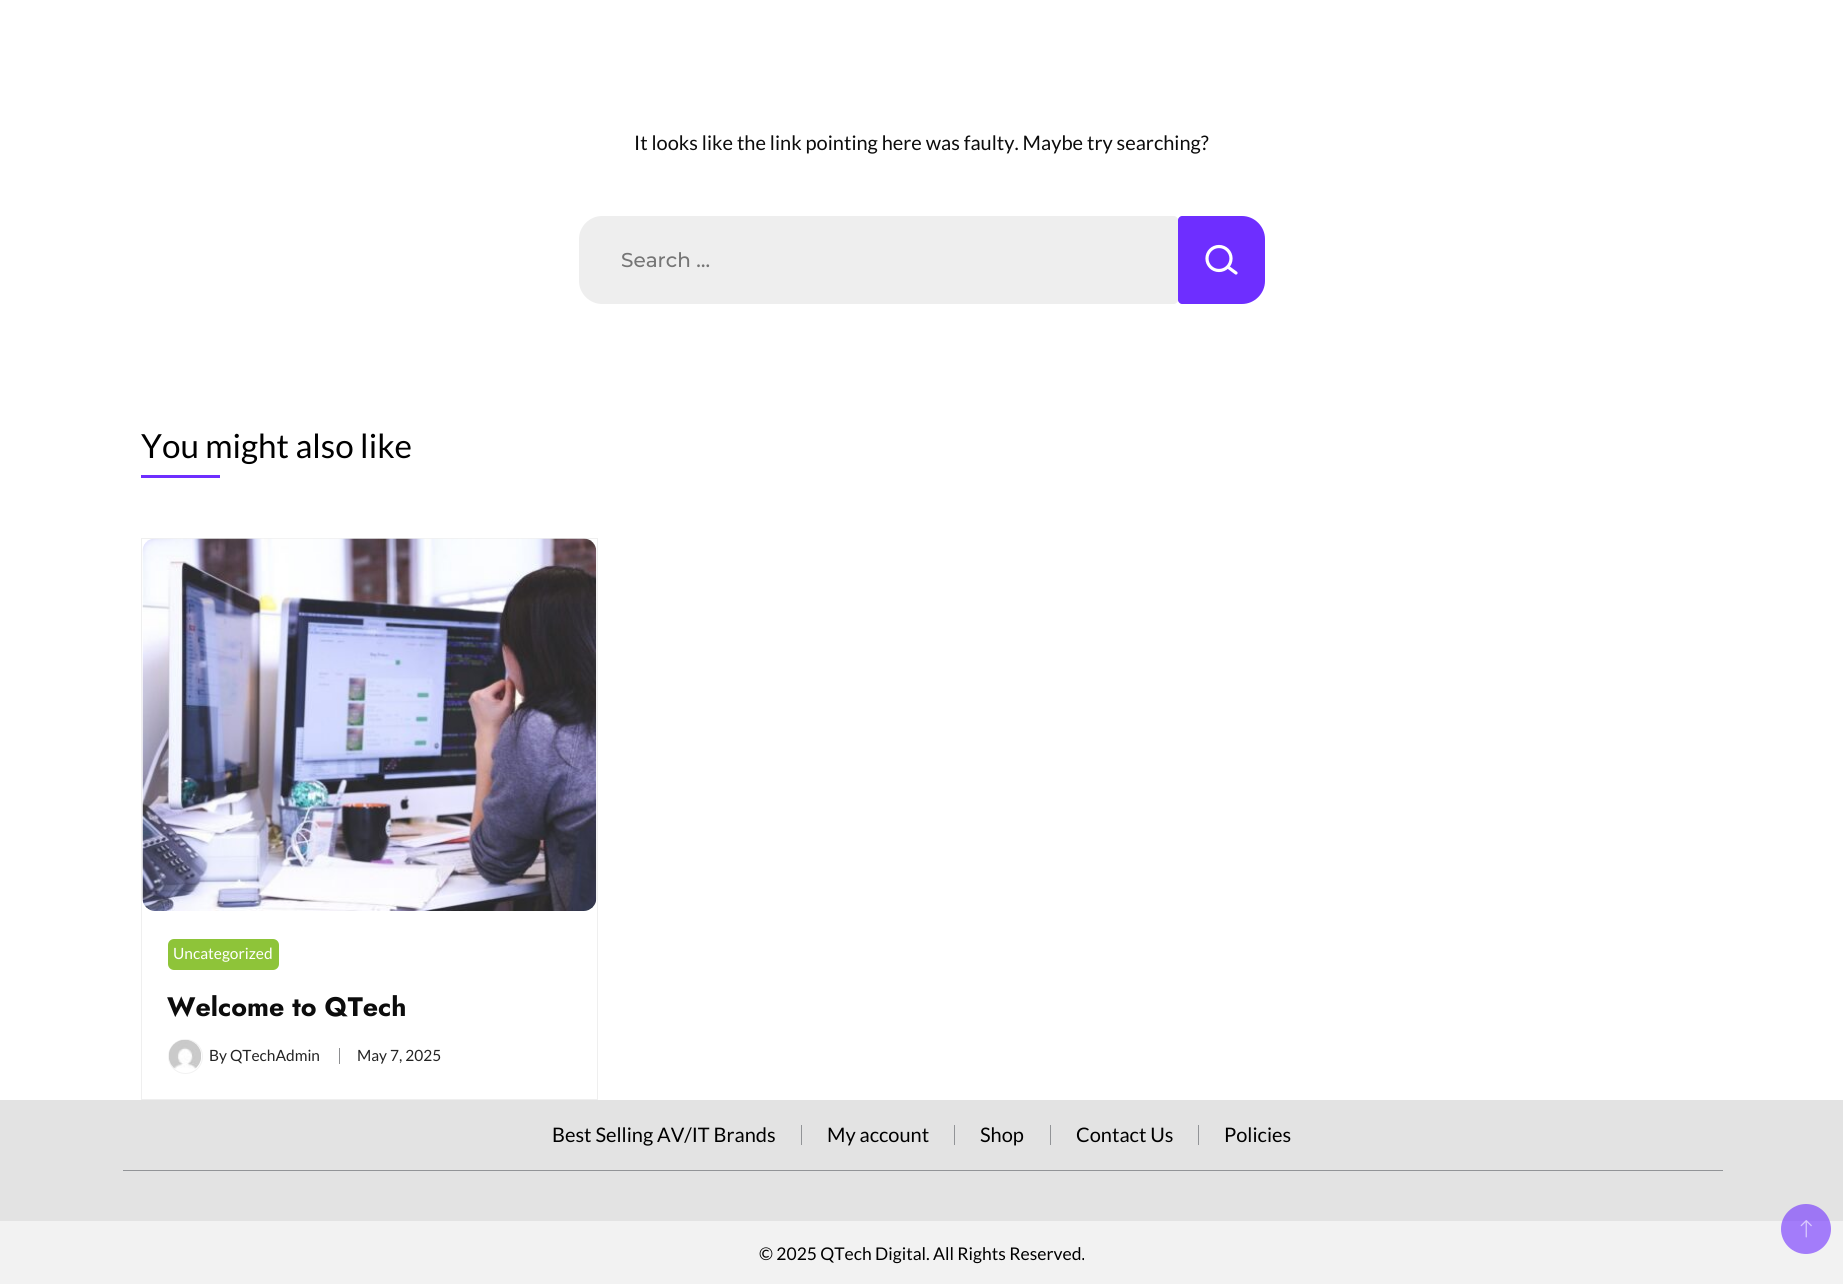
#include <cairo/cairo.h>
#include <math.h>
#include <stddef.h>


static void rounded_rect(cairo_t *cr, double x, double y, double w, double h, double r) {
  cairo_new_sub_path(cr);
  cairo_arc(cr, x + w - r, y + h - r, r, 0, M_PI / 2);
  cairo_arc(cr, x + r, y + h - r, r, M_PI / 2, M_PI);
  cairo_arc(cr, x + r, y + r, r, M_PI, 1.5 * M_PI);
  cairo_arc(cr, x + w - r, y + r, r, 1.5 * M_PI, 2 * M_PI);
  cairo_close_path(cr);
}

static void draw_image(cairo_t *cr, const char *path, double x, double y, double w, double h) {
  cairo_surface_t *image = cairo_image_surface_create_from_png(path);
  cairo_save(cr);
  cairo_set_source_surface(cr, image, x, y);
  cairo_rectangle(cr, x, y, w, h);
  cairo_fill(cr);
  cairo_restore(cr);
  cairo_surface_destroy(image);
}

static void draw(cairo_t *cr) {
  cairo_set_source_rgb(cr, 1, 1, 1);
  cairo_paint(cr);
  cairo_set_source_rgb(cr, 238 / 255.0, 238 / 255.0, 238 / 255.0);
  cairo_new_path(cr);
  cairo_move_to(cr, 602, 216);
  cairo_line_to(cr, 1174, 216);
  cairo_curve_to(cr, 1176, 216, 1178, 218, 1178, 220);
  cairo_line_to(cr, 1178, 300);
  cairo_curve_to(cr, 1178, 302, 1176, 304, 1174, 304);
  cairo_line_to(cr, 602, 304);
  cairo_curve_to(cr, 589.5, 304, 579, 293.5, 579, 281);
  cairo_line_to(cr, 579, 239);
  cairo_curve_to(cr, 579, 226.5, 589.5, 216, 602, 216);
  cairo_close_path(cr);
  cairo_fill(cr);
  cairo_set_source_rgb(cr, 110 / 255.0, 46 / 255.0, 1);
  cairo_new_path(cr);
  cairo_move_to(cr, 1182, 216);
  cairo_line_to(cr, 1242, 216);
  cairo_curve_to(cr, 1254.5, 216, 1265, 226.5, 1265, 239);
  cairo_line_to(cr, 1265, 281);
  cairo_curve_to(cr, 1265, 293.5, 1254.5, 304, 1242, 304);
  cairo_line_to(cr, 1182, 304);
  cairo_curve_to(cr, 1180, 304, 1178, 302, 1178, 300);
  cairo_line_to(cr, 1178, 220);
  cairo_curve_to(cr, 1178, 218, 1180, 216, 1182, 216);
  cairo_close_path(cr);
  cairo_fill(cr);
  cairo_arc(cr, 1219, 258.5, 12, 0, 2 * M_PI);
  cairo_set_source_rgb(cr, 1, 1, 1);
  cairo_set_line_width(cr, 3.2);
  cairo_stroke(cr);
  cairo_new_path(cr);
  cairo_move_to(cr, 1228.5, 267.5);
  cairo_line_to(cr, 1236, 273);
  cairo_set_line_cap(cr, CAIRO_LINE_CAP_ROUND);
  cairo_set_line_join(cr, CAIRO_LINE_JOIN_ROUND);
  cairo_stroke(cr);
  cairo_set_source_rgb(cr, 110 / 255.0, 46 / 255.0, 1);
  cairo_rectangle(cr, 141, 475, 79, 3);
  cairo_fill(cr);
  cairo_rectangle(cr, 141.5, 538.5, 456, 561);
  cairo_set_source_rgb(cr, 239 / 255.0, 239 / 255.0, 239 / 255.0);
  cairo_set_line_width(cr, 1);
  cairo_set_line_cap(cr, CAIRO_LINE_CAP_BUTT);
  cairo_set_line_join(cr, CAIRO_LINE_JOIN_MITER);
  cairo_stroke(cr);
  draw_image(cr, "images/1.png", 142, 538, 455, 373);
  cairo_set_source_rgb(cr, 142 / 255.0, 196 / 255.0, 57 / 255.0);
  rounded_rect(cr, 168, 939, 111, 31, 6);
  cairo_fill(cr);
  cairo_arc(cr, 185.5, 1056.5, 17, 0, 2 * M_PI);
  cairo_set_source_rgb(cr, 242 / 255.0, 242 / 255.0, 242 / 255.0);
  cairo_stroke(cr);
  draw_image(cr, "images/2.png", 169, 1040, 32, 29);
  cairo_set_source_rgb(cr, 141 / 255.0, 142 / 255.0, 144 / 255.0);
  cairo_rectangle(cr, 339, 1048, 1, 16);
  cairo_fill(cr);
  cairo_set_source_rgb(cr, 227 / 255.0, 227 / 255.0, 227 / 255.0);
  cairo_rectangle(cr, 0, 1100, 1843, 121);
  cairo_fill(cr);
  cairo_set_source_rgb(cr, 146 / 255.0, 148 / 255.0, 151 / 255.0);
  cairo_rectangle(cr, 801, 1125, 1, 20);
  cairo_fill(cr);
  cairo_rectangle(cr, 954, 1125, 1, 20);
  cairo_fill(cr);
  cairo_rectangle(cr, 1050, 1125, 1, 20);
  cairo_fill(cr);
  cairo_rectangle(cr, 1198, 1125, 1, 20);
  cairo_fill(cr);
  cairo_rectangle(cr, 123, 1170, 1600, 1);
  cairo_fill(cr);
  cairo_set_source_rgb(cr, 242 / 255.0, 242 / 255.0, 242 / 255.0);
  cairo_rectangle(cr, 0, 1221, 1843, 63);
  cairo_fill(cr);
  cairo_set_source_rgba(cr, 110 / 255.0, 46 / 255.0, 1, 0.6);
  cairo_arc(cr, 1806, 1229, 25, 0, 2 * M_PI);
  cairo_fill(cr);
  draw_image(cr, "images/3.png", 1800, 1220, 12, 18);
  cairo_select_font_face(cr, "Lato", CAIRO_FONT_SLANT_NORMAL, CAIRO_FONT_WEIGHT_NORMAL);
  cairo_set_font_size(cr, 20);
  cairo_set_source_rgb(cr, 12 / 255.0, 12 / 255.0, 12 / 255.0);
  cairo_move_to(cr, 634, 150);
  cairo_show_text(cr, "It looks like the link pointing here was faulty. Maybe try searching?");
  cairo_select_font_face(cr, "Montserrat Medium", CAIRO_FONT_SLANT_NORMAL, CAIRO_FONT_WEIGHT_NORMAL);
  cairo_set_source_rgb(cr, 117 / 255.0, 117 / 255.0, 117 / 255.0);
  cairo_move_to(cr, 621, 267);
  cairo_show_text(cr, "Search …");
  cairo_select_font_face(cr, "Lato", CAIRO_FONT_SLANT_NORMAL, CAIRO_FONT_WEIGHT_NORMAL);
  cairo_set_font_size(cr, 33.25);
  cairo_set_source_rgb(cr, 0, 0, 0);
  cairo_move_to(cr, 141, 458);
  cairo_show_text(cr, "You might also like");
  cairo_set_font_size(cr, 15.5);
  cairo_set_source_rgb(cr, 1, 1, 1);
  cairo_move_to(cr, 173, 959);
  cairo_show_text(cr, "Uncategorized");
  cairo_select_font_face(cr, "Jost", CAIRO_FONT_SLANT_NORMAL, CAIRO_FONT_WEIGHT_BOLD);
  cairo_set_font_size(cr, 26.75);
  cairo_set_source_rgb(cr, 12 / 255.0, 12 / 255.0, 12 / 255.0);
  cairo_move_to(cr, 167, 1016);
  cairo_show_text(cr, "Welcome to QTech");
  cairo_select_font_face(cr, "Lato", CAIRO_FONT_SLANT_NORMAL, CAIRO_FONT_WEIGHT_NORMAL);
  cairo_set_font_size(cr, 15.5);
  cairo_set_source_rgb(cr, 36 / 255.0, 36 / 255.0, 36 / 255.0);
  cairo_move_to(cr, 209, 1061);
  cairo_show_text(cr, "By QTechAdmin");
  cairo_move_to(cr, 357, 1061);
  cairo_show_text(cr, "May 7, 2025");
  cairo_set_font_size(cr, 20);
  cairo_set_source_rgb(cr, 0, 0, 0);
  cairo_move_to(cr, 552, 1142);
  cairo_show_text(cr, "Best Selling AV/IT Brands");
  cairo_move_to(cr, 827, 1142);
  cairo_show_text(cr, "My account");
  cairo_move_to(cr, 980, 1142);
  cairo_show_text(cr, "Shop");
  cairo_move_to(cr, 1076, 1142);
  cairo_show_text(cr, "Contact Us");
  cairo_move_to(cr, 1224, 1142);
  cairo_show_text(cr, "Policies");
  cairo_set_font_size(cr, 17.5);
  cairo_move_to(cr, 759, 1260);
  cairo_show_text(cr, "© 2025 QTech Digital. All Rights Reserved.");
}

int main(void) {
  cairo_surface_t *surface = cairo_image_surface_create(CAIRO_FORMAT_RGB24, 1843, 1284);
  cairo_t *cr = cairo_create(surface);
  cairo_font_options_t *options = cairo_font_options_create();
  cairo_font_options_set_hint_metrics(options, CAIRO_HINT_METRICS_OFF);
  cairo_font_options_set_hint_style(options, CAIRO_HINT_STYLE_NONE);
  cairo_set_font_options(cr, options);
  cairo_set_miter_limit(cr, 4);
  draw(cr);
  cairo_surface_write_to_png(surface, "out.png");
  cairo_font_options_destroy(options);
  cairo_destroy(cr);
  cairo_surface_destroy(surface);
  return 0;
}
